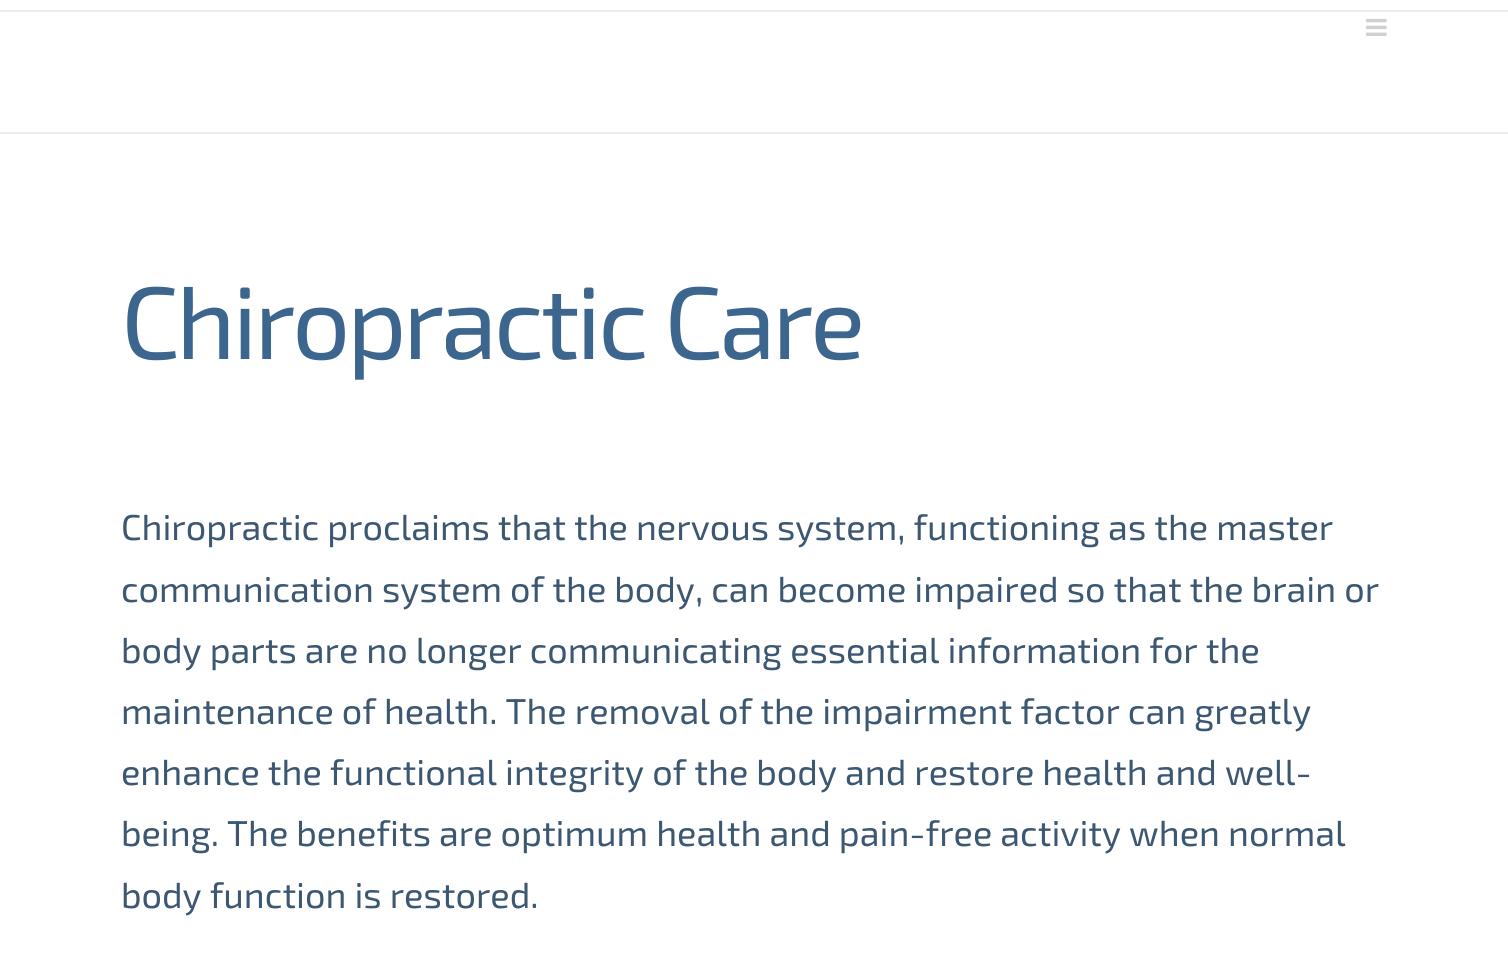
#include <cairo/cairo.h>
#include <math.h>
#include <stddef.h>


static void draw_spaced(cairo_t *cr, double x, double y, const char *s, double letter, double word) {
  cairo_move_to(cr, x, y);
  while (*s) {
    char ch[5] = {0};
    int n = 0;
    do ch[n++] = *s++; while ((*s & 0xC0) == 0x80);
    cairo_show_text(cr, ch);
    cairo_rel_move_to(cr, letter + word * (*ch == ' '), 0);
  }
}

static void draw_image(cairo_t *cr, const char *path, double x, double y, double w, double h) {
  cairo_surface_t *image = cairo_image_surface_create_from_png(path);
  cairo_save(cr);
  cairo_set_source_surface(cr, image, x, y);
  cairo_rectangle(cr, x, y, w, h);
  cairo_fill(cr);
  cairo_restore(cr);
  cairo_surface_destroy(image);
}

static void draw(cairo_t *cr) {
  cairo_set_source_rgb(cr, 1, 1, 1);
  cairo_paint(cr);
  cairo_set_source_rgb(cr, 236 / 255.0, 236 / 255.0, 236 / 255.0);
  cairo_rectangle(cr, 0, 10, 1508, 2);
  cairo_fill(cr);
  cairo_rectangle(cr, 0, 132, 1508, 2);
  cairo_fill(cr);
  draw_image(cr, "images/1.png", 1366, 18, 21, 18);
  cairo_select_font_face(cr, "Exo 2", CAIRO_FONT_SLANT_NORMAL, CAIRO_FONT_WEIGHT_NORMAL);
  cairo_set_font_size(cr, 103);
  cairo_set_source_rgb(cr, 61 / 255.0, 102 / 255.0, 142 / 255.0);
  draw_spaced(cr, 121, 359, "Chiropractic Care", -3.6, 0);
  cairo_set_font_size(cr, 36);
  cairo_set_source_rgb(cr, 59 / 255.0, 87 / 255.0, 114 / 255.0);
  cairo_move_to(cr, 121, 540);
  cairo_show_text(cr, "Chiropractic proclaims that the nervous system, functioning as the master");
  cairo_move_to(cr, 121, 602);
  cairo_show_text(cr, "communication system of the body, can become impaired so that the brain or");
  cairo_move_to(cr, 121, 663);
  cairo_show_text(cr, "body parts are no longer communicating essential information for the");
  cairo_move_to(cr, 121, 724);
  cairo_show_text(cr, "maintenance of health. The removal of the impairment factor can greatly");
  cairo_move_to(cr, 121, 785);
  cairo_show_text(cr, "enhance the functional integrity of the body and restore health and well-");
  cairo_move_to(cr, 121, 846);
  cairo_show_text(cr, "being. The benefits are optimum health and pain-free activity when normal");
  cairo_move_to(cr, 121, 908);
  cairo_show_text(cr, "body function is restored.");
}

int main(void) {
  cairo_surface_t *surface = cairo_image_surface_create(CAIRO_FORMAT_RGB24, 1508, 962);
  cairo_t *cr = cairo_create(surface);
  cairo_font_options_t *options = cairo_font_options_create();
  cairo_font_options_set_hint_metrics(options, CAIRO_HINT_METRICS_OFF);
  cairo_font_options_set_hint_style(options, CAIRO_HINT_STYLE_NONE);
  cairo_set_font_options(cr, options);
  cairo_set_miter_limit(cr, 4);
  draw(cr);
  cairo_surface_write_to_png(surface, "out.png");
  cairo_font_options_destroy(options);
  cairo_destroy(cr);
  cairo_surface_destroy(surface);
  return 0;
}
